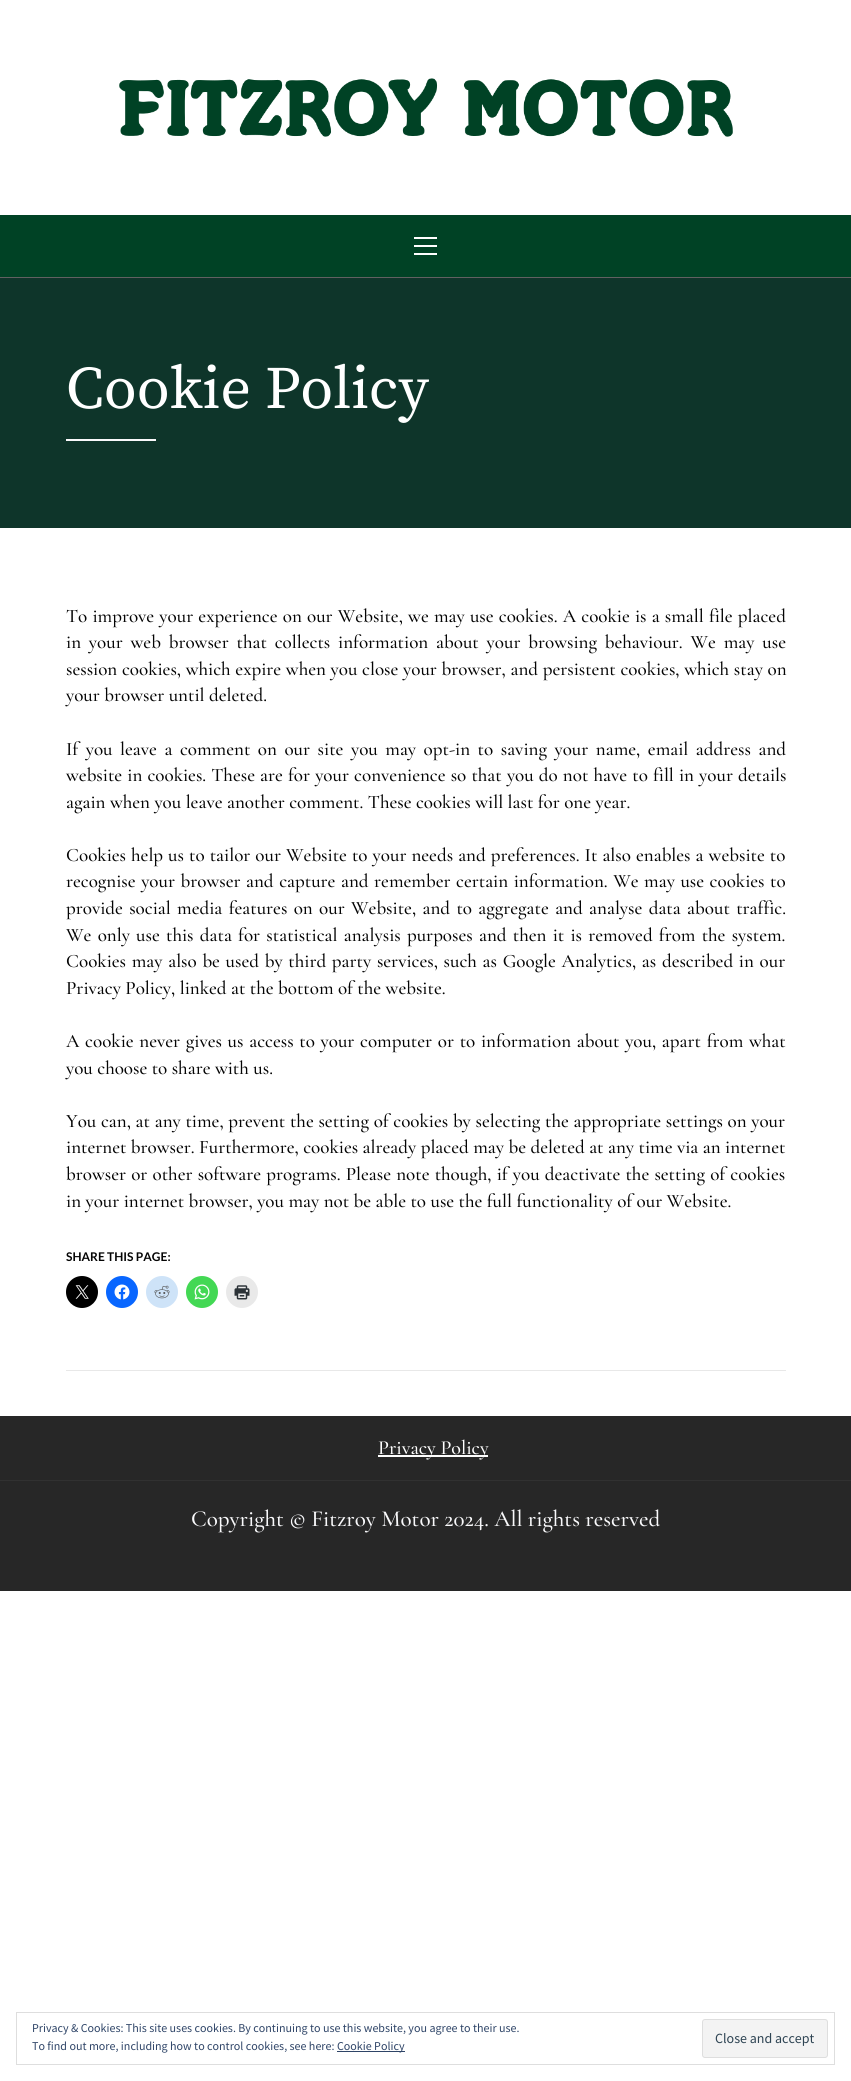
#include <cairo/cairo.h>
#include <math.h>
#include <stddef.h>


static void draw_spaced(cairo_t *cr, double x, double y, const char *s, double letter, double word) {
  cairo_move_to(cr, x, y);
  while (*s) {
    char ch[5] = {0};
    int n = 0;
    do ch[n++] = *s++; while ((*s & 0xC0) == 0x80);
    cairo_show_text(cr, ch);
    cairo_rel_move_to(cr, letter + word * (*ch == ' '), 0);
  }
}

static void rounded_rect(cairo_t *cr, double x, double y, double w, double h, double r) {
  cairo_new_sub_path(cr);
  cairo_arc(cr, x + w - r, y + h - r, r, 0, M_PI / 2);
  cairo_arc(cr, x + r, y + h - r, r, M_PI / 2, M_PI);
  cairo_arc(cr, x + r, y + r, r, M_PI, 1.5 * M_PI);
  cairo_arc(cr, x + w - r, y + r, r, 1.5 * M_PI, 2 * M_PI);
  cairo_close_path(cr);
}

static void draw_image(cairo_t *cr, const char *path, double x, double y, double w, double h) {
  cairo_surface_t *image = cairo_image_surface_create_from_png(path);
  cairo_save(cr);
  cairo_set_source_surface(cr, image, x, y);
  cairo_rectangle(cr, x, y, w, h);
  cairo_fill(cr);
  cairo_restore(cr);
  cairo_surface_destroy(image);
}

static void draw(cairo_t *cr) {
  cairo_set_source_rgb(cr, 1, 1, 1);
  cairo_paint(cr);
  draw_image(cr, "images/1.png", 119, 78, 614, 59);
  cairo_set_source_rgb(cr, 0, 66 / 255.0, 37 / 255.0);
  cairo_rectangle(cr, 0, 215, 851, 62);
  cairo_fill(cr);
  cairo_set_source_rgb(cr, 97 / 255.0, 97 / 255.0, 97 / 255.0);
  cairo_rectangle(cr, 0, 277, 851, 1);
  cairo_fill(cr);
  cairo_set_source_rgb(cr, 1, 1, 1);
  cairo_rectangle(cr, 414, 245, 23, 2);
  cairo_fill(cr);
  cairo_rectangle(cr, 414, 237, 23, 2);
  cairo_fill(cr);
  cairo_rectangle(cr, 414, 253, 23, 2);
  cairo_fill(cr);
  cairo_set_source_rgb(cr, 14 / 255.0, 53 / 255.0, 42 / 255.0);
  cairo_rectangle(cr, 0, 278, 851, 250);
  cairo_fill(cr);
  cairo_set_source_rgb(cr, 249 / 255.0, 249 / 255.0, 251 / 255.0);
  cairo_rectangle(cr, 66, 439, 90, 2);
  cairo_fill(cr);
  cairo_set_source_rgb(cr, 232 / 255.0, 232 / 255.0, 232 / 255.0);
  cairo_rectangle(cr, 66, 1370, 720, 1);
  cairo_fill(cr);
  cairo_set_source_rgb(cr, 0, 0, 0);
  cairo_arc(cr, 82, 1292, 16, 0, 2 * M_PI);
  cairo_fill(cr);
  draw_image(cr, "images/2.png", 75, 1285, 14, 14);
  cairo_set_source_rgb(cr, 8 / 255.0, 102 / 255.0, 1);
  cairo_arc(cr, 122, 1292, 16, 0, 2 * M_PI);
  cairo_fill(cr);
  draw_image(cr, "images/3.png", 114, 1284, 16, 16);
  cairo_set_source_rgb(cr, 206 / 255.0, 227 / 255.0, 248 / 255.0);
  cairo_arc(cr, 162, 1292, 16, 0, 2 * M_PI);
  cairo_fill(cr);
  draw_image(cr, "images/4.png", 154, 1285, 16, 14);
  cairo_set_source_rgb(cr, 67 / 255.0, 216 / 255.0, 84 / 255.0);
  cairo_arc(cr, 202, 1292, 16, 0, 2 * M_PI);
  cairo_fill(cr);
  draw_image(cr, "images/5.png", 194, 1284, 16, 16);
  cairo_set_source_rgb(cr, 233 / 255.0, 233 / 255.0, 233 / 255.0);
  cairo_arc(cr, 242, 1292, 16, 0, 2 * M_PI);
  cairo_fill(cr);
  draw_image(cr, "images/6.png", 234, 1285, 16, 15);
  cairo_set_source_rgb(cr, 39 / 255.0, 39 / 255.0, 39 / 255.0);
  cairo_rectangle(cr, 0, 1416, 851, 175);
  cairo_fill(cr);
  cairo_set_source_rgb(cr, 1, 1, 1);
  cairo_rectangle(cr, 378, 1455, 110, 2);
  cairo_fill(cr);
  cairo_set_source_rgb(cr, 49 / 255.0, 49 / 255.0, 49 / 255.0);
  cairo_rectangle(cr, 0, 1480, 851, 1);
  cairo_fill(cr);
  cairo_rectangle(cr, 16.5, 2012.5, 818, 52);
  cairo_set_source_rgb(cr, 222 / 255.0, 222 / 255.0, 222 / 255.0);
  cairo_set_line_width(cr, 1);
  cairo_stroke(cr);
  cairo_set_source_rgb(cr, 46 / 255.0, 68 / 255.0, 103 / 255.0);
  cairo_rectangle(cr, 337, 2051, 68, 1);
  cairo_fill(cr);
  cairo_set_source_rgb(cr, 243 / 255.0, 243 / 255.0, 243 / 255.0);
  rounded_rect(cr, 702.5, 2019.5, 125, 38, 2.5);
  cairo_fill_preserve(cr);
  cairo_set_source_rgb(cr, 222 / 255.0, 222 / 255.0, 222 / 255.0);
  cairo_stroke(cr);
  cairo_select_font_face(cr, "Source Serif Pro", CAIRO_FONT_SLANT_NORMAL, CAIRO_FONT_WEIGHT_NORMAL);
  cairo_set_font_size(cr, 60);
  cairo_set_source_rgb(cr, 1, 1, 1);
  cairo_move_to(cr, 66, 408);
  cairo_show_text(cr, "Cookie Policy");
  cairo_select_font_face(cr, "Cormorant Garamond Light", CAIRO_FONT_SLANT_NORMAL, CAIRO_FONT_WEIGHT_NORMAL);
  cairo_set_font_size(cr, 19);
  cairo_set_source_rgb(cr, 4 / 255.0, 4 / 255.0, 4 / 255.0);
  draw_spaced(cr, 66, 622, "To improve your experience on our Website, we may use cookies. A cookie is a small file placed", 0, 0.75);
  draw_spaced(cr, 66, 648, "in your web browser that collects information about your browsing behaviour. We may use", 0, 3.4);
  draw_spaced(cr, 66, 675, "session cookies, which expire when you close your browser, and persistent cookies, which stay on", 0, 0.25);
  cairo_move_to(cr, 66, 701);
  cairo_show_text(cr, "your browser until deleted.");
  draw_spaced(cr, 66, 755, "If you leave a comment on our site you may opt-in to saving your name, email address and", 0, 3.1);
  draw_spaced(cr, 66, 781, "website in cookies. These are for your convenience so that you do not have to fill in your details", 0, 0.7);
  cairo_move_to(cr, 66, 808);
  cairo_show_text(cr, "again when you leave another comment. These cookies will last for one year.");
  draw_spaced(cr, 66, 861, "Cookies help us to tailor our Website to your needs and preferences. It also enables a website to", 0, 0.6);
  draw_spaced(cr, 66, 887, "recognise your browser and capture and remember certain information. We may use cookies to", 0, 1.1);
  draw_spaced(cr, 66, 914, "provide social media features on our Website, and to aggregate and analyse data about traffic.", 0, 1.9);
  draw_spaced(cr, 66, 941, "We only use this data for statistical analysis purposes and then it is removed from the system.", 0, 1.8);
  draw_spaced(cr, 66, 967, "Cookies may also be used by third party services, such as Google Analytics, as described in our", 0, 1.25);
  cairo_move_to(cr, 66, 994);
  cairo_show_text(cr, "Privacy Policy, linked at the bottom of the website.");
  draw_spaced(cr, 66, 1047, "A cookie never gives us access to your computer or to information about you, apart from what", 0, 1.25);
  cairo_move_to(cr, 66, 1074);
  cairo_show_text(cr, "you choose to share with us.");
  draw_spaced(cr, 66, 1127, "You can, at any time, prevent the setting of cookies by selecting the appropriate settings on your", 0, 0.25);
  cairo_move_to(cr, 66, 1153);
  cairo_show_text(cr, "internet browser. Furthermore, cookies already placed may be deleted at any time via an internet");
  draw_spaced(cr, 66, 1180, "browser or other software programs. Please note though, if you deactivate the setting of cookies", 0, 0.75);
  cairo_move_to(cr, 66, 1207);
  cairo_show_text(cr, "in your internet browser, you may not be able to use the full functionality of our Website.");
  cairo_select_font_face(cr, "Lato", CAIRO_FONT_SLANT_NORMAL, CAIRO_FONT_WEIGHT_BOLD);
  cairo_set_font_size(cr, 12);
  cairo_move_to(cr, 66, 1261);
  cairo_show_text(cr, "SHARE THIS PAGE:");
  cairo_select_font_face(cr, "Cormorant Garamond Light", CAIRO_FONT_SLANT_NORMAL, CAIRO_FONT_WEIGHT_NORMAL);
  cairo_set_font_size(cr, 20);
  cairo_set_source_rgb(cr, 1, 1, 1);
  cairo_move_to(cr, 378, 1454);
  cairo_show_text(cr, "Privacy Policy");
  cairo_set_font_size(cr, 23);
  cairo_set_source_rgb(cr, 249 / 255.0, 249 / 255.0, 251 / 255.0);
  cairo_move_to(cr, 191, 1526);
  cairo_show_text(cr, "Copyright © Fitzroy Motor 2024. All rights reserved");
  cairo_select_font_face(cr, "Source Sans Pro", CAIRO_FONT_SLANT_NORMAL, CAIRO_FONT_WEIGHT_NORMAL);
  cairo_set_font_size(cr, 12);
  cairo_set_source_rgb(cr, 46 / 255.0, 68 / 255.0, 103 / 255.0);
  cairo_move_to(cr, 32, 2032);
  cairo_show_text(cr, "Privacy & Cookies: This site uses cookies. By continuing to use this website, you agree to their use.");
  cairo_move_to(cr, 32, 2050);
  cairo_show_text(cr, "To find out more, including how to control cookies, see here:");
  cairo_move_to(cr, 337, 2050);
  cairo_show_text(cr, "Cookie Policy");
  cairo_set_font_size(cr, 14);
  cairo_set_source_rgb(cr, 46 / 255.0, 68 / 255.0, 83 / 255.0);
  cairo_move_to(cr, 715, 2043);
  cairo_show_text(cr, "Close and accept");
}

int main(void) {
  cairo_surface_t *surface = cairo_image_surface_create(CAIRO_FORMAT_RGB24, 851, 2081);
  cairo_t *cr = cairo_create(surface);
  cairo_font_options_t *options = cairo_font_options_create();
  cairo_font_options_set_hint_metrics(options, CAIRO_HINT_METRICS_OFF);
  cairo_font_options_set_hint_style(options, CAIRO_HINT_STYLE_NONE);
  cairo_set_font_options(cr, options);
  cairo_set_miter_limit(cr, 4);
  draw(cr);
  cairo_surface_write_to_png(surface, "out.png");
  cairo_font_options_destroy(options);
  cairo_destroy(cr);
  cairo_surface_destroy(surface);
  return 0;
}
